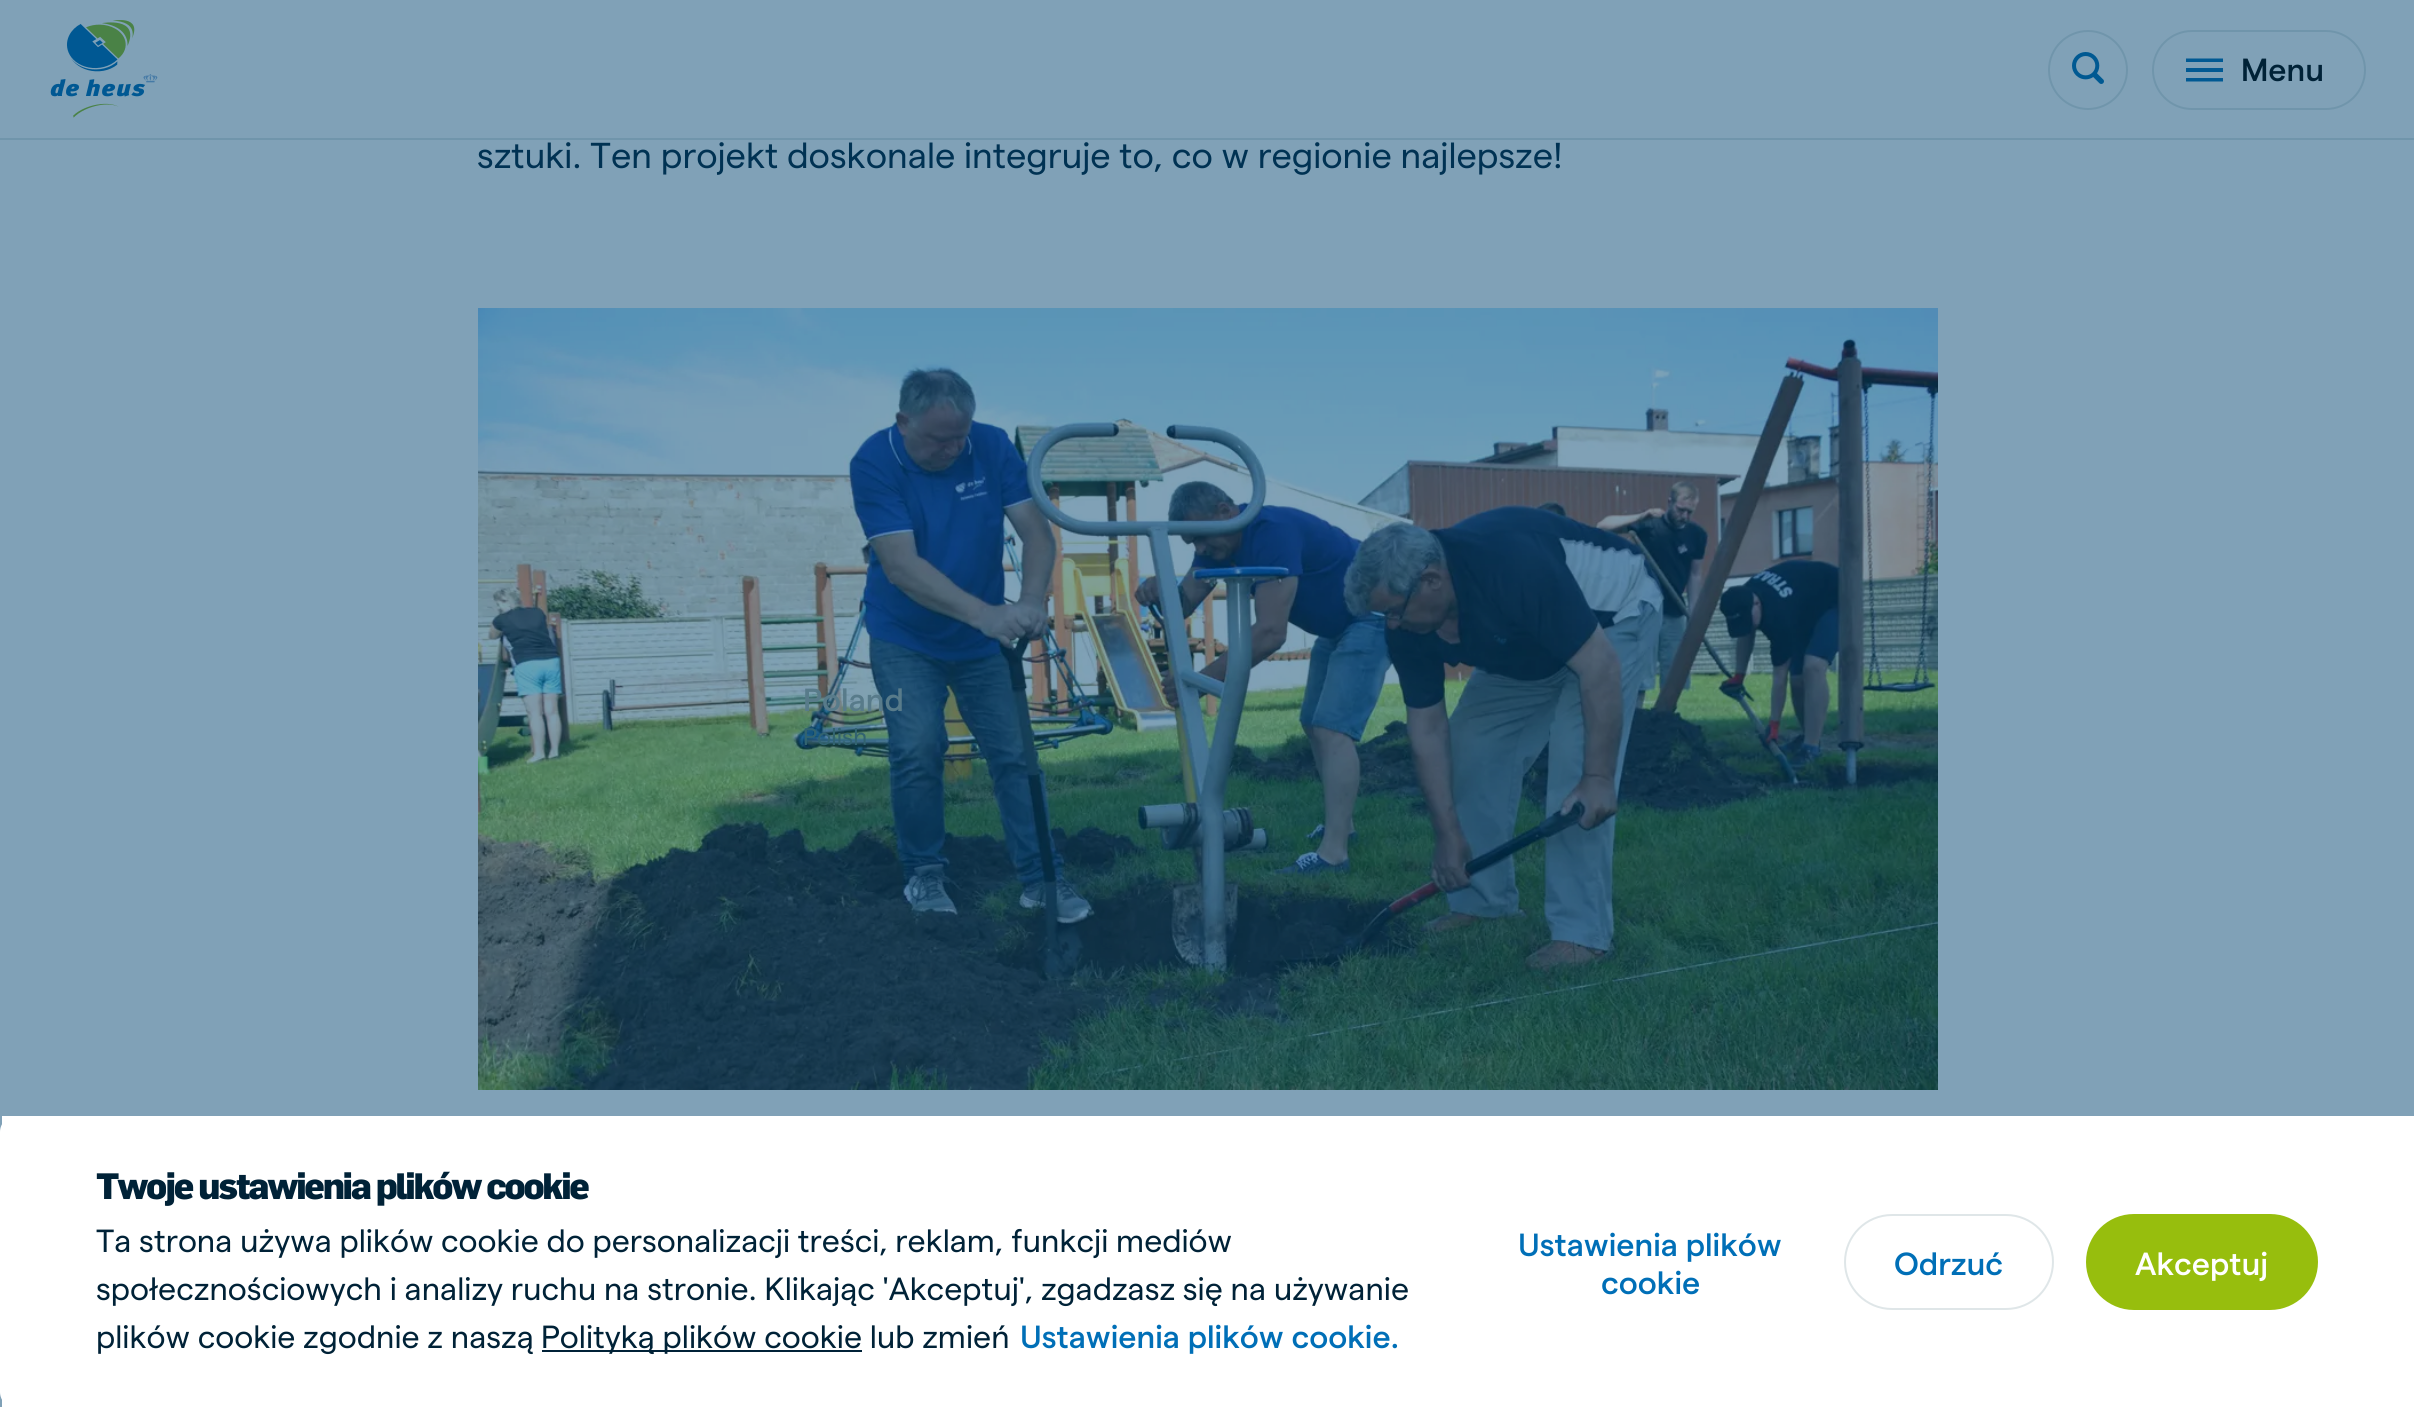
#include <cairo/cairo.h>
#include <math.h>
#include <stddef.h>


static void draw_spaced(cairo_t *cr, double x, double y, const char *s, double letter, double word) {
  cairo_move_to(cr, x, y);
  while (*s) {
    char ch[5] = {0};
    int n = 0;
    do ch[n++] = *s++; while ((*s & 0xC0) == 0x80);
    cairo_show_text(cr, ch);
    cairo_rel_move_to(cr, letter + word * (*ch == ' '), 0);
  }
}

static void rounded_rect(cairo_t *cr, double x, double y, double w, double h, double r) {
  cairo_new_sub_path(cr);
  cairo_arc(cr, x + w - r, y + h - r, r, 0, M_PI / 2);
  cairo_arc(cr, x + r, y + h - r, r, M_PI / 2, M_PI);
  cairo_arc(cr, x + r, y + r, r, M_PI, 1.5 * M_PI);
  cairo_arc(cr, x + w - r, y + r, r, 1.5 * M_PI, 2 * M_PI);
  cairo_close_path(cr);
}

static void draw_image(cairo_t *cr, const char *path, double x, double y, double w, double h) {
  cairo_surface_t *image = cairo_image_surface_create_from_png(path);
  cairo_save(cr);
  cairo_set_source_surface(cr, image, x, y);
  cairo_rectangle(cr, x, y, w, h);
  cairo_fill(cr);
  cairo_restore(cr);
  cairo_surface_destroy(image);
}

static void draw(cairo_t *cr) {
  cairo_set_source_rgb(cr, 128 / 255.0, 161 / 255.0, 183 / 255.0);
  cairo_paint(cr);
  cairo_set_source_rgb(cr, 112 / 255.0, 149 / 255.0, 171 / 255.0);
  cairo_rectangle(cr, 0, 138, 2414, 2);
  cairo_fill(cr);
  draw_image(cr, "images/1.png", 50, 20, 108, 98);
  cairo_arc(cr, 2088, 70, 39, 0, 2 * M_PI);
  cairo_stroke(cr);
  draw_image(cr, "images/2.png", 2072, 52, 32, 32);
  rounded_rect(cr, 2153, 31, 212, 78, 39);
  cairo_stroke(cr);
  cairo_set_source_rgb(cr, 0, 89 / 255.0, 147 / 255.0);
  cairo_set_fill_rule(cr, CAIRO_FILL_RULE_EVEN_ODD);
  cairo_new_path(cr);
  cairo_move_to(cr, 2223, 58.5);
  cairo_line_to(cr, 2223, 62);
  cairo_line_to(cr, 2186, 62);
  cairo_line_to(cr, 2186, 58.5);
  cairo_close_path(cr);
  cairo_move_to(cr, 2223, 68);
  cairo_line_to(cr, 2223, 72);
  cairo_line_to(cr, 2186, 72);
  cairo_line_to(cr, 2186, 68);
  cairo_close_path(cr);
  cairo_move_to(cr, 2223, 81.5);
  cairo_line_to(cr, 2223, 78);
  cairo_line_to(cr, 2186, 78);
  cairo_line_to(cr, 2186, 81.5);
  cairo_close_path(cr);
  cairo_fill(cr);
  draw_image(cr, "images/3.png", 478, 308, 1460, 782);
  cairo_set_source_rgb(cr, 1, 1, 1);
  rounded_rect(cr, 0, 1116, 2414, 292, 16);
  cairo_fill(cr);
  cairo_rectangle(cr, 2, 1116, 2412, 291);
  cairo_fill(cr);
  cairo_set_source_rgb(cr, 0, 33 / 255.0, 55 / 255.0);
  cairo_rectangle(cr, 542, 1350, 320, 2);
  cairo_fill(cr);
  rounded_rect(cr, 1845, 1215, 208, 94, 47);
  cairo_set_source_rgb(cr, 223 / 255.0, 230 / 255.0, 232 / 255.0);
  cairo_stroke(cr);
  cairo_set_source_rgb(cr, 151 / 255.0, 190 / 255.0, 13 / 255.0);
  rounded_rect(cr, 2087, 1215, 230, 94, 47);
  cairo_fill_preserve(cr);
  cairo_stroke(cr);
  cairo_select_font_face(cr, "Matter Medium", CAIRO_FONT_SLANT_NORMAL, CAIRO_FONT_WEIGHT_NORMAL);
  cairo_set_font_size(cr, 32);
  cairo_set_source_rgb(cr, 0, 34 / 255.0, 55 / 255.0);
  cairo_move_to(cr, 2241, 81);
  cairo_show_text(cr, "Menu");
  cairo_select_font_face(cr, "Matter", CAIRO_FONT_SLANT_NORMAL, CAIRO_FONT_WEIGHT_NORMAL);
  cairo_set_font_size(cr, 36);
  cairo_set_source_rgb(cr, 0, 50 / 255.0, 83 / 255.0);
  cairo_move_to(cr, 477, 168);
  cairo_show_text(cr, "sztuki. Ten projekt doskonale integruje to, co w regionie najlepsze!");
  cairo_select_font_face(cr, "Matter Medium", CAIRO_FONT_SLANT_NORMAL, CAIRO_FONT_WEIGHT_NORMAL);
  cairo_set_font_size(cr, 32);
  cairo_set_source_rgb(cr, 88 / 255.0, 123 / 255.0, 138 / 255.0);
  cairo_move_to(cr, 803, 711);
  cairo_show_text(cr, "Poland");
  cairo_select_font_face(cr, "Matter", CAIRO_FONT_SLANT_NORMAL, CAIRO_FONT_WEIGHT_NORMAL);
  cairo_set_font_size(cr, 24);
  cairo_set_source_rgb(cr, 50 / 255.0, 99 / 255.0, 112 / 255.0);
  cairo_move_to(cr, 803, 745);
  cairo_show_text(cr, "Polish");
  cairo_select_font_face(cr, "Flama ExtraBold", CAIRO_FONT_SLANT_NORMAL, CAIRO_FONT_WEIGHT_NORMAL);
  cairo_set_font_size(cr, 36);
  cairo_set_source_rgb(cr, 0, 34 / 255.0, 55 / 255.0);
  draw_spaced(cr, 96, 1199, "Twoje ustawienia plików cookie", -2.25, 0);
  cairo_select_font_face(cr, "Matter", CAIRO_FONT_SLANT_NORMAL, CAIRO_FONT_WEIGHT_NORMAL);
  cairo_set_font_size(cr, 32);
  cairo_move_to(cr, 96, 1252);
  cairo_show_text(cr, "Ta strona używa plików cookie do personalizacji treści, reklam, funkcji mediów");
  cairo_move_to(cr, 96, 1300);
  cairo_show_text(cr, "społecznościowych i analizy ruchu na stronie. Klikając 'Akceptuj', zgadzasz się na używanie");
  cairo_move_to(cr, 96, 1348);
  cairo_show_text(cr, "plików cookie zgodnie z naszą");
  cairo_move_to(cr, 541, 1348);
  cairo_show_text(cr, "Polityką plików cookie lub zmień");
  cairo_select_font_face(cr, "Matter Medium", CAIRO_FONT_SLANT_NORMAL, CAIRO_FONT_WEIGHT_NORMAL);
  cairo_set_source_rgb(cr, 0, 111 / 255.0, 183 / 255.0);
  cairo_move_to(cr, 1020, 1348);
  cairo_show_text(cr, "Ustawienia plików cookie.");
  cairo_move_to(cr, 1518, 1256);
  cairo_show_text(cr, "Ustawienia plików");
  cairo_move_to(cr, 1601, 1294);
  cairo_show_text(cr, "cookie");
  cairo_move_to(cr, 1894, 1275);
  cairo_show_text(cr, "Odrzuć");
  cairo_set_source_rgb(cr, 1, 1, 1);
  cairo_move_to(cr, 2135, 1275);
  cairo_show_text(cr, "Akceptuj");
}

int main(void) {
  cairo_surface_t *surface = cairo_image_surface_create(CAIRO_FORMAT_RGB24, 2414, 1407);
  cairo_t *cr = cairo_create(surface);
  cairo_font_options_t *options = cairo_font_options_create();
  cairo_font_options_set_hint_metrics(options, CAIRO_HINT_METRICS_OFF);
  cairo_font_options_set_hint_style(options, CAIRO_HINT_STYLE_NONE);
  cairo_set_font_options(cr, options);
  cairo_set_miter_limit(cr, 4);
  draw(cr);
  cairo_surface_write_to_png(surface, "out.png");
  cairo_font_options_destroy(options);
  cairo_destroy(cr);
  cairo_surface_destroy(surface);
  return 0;
}
